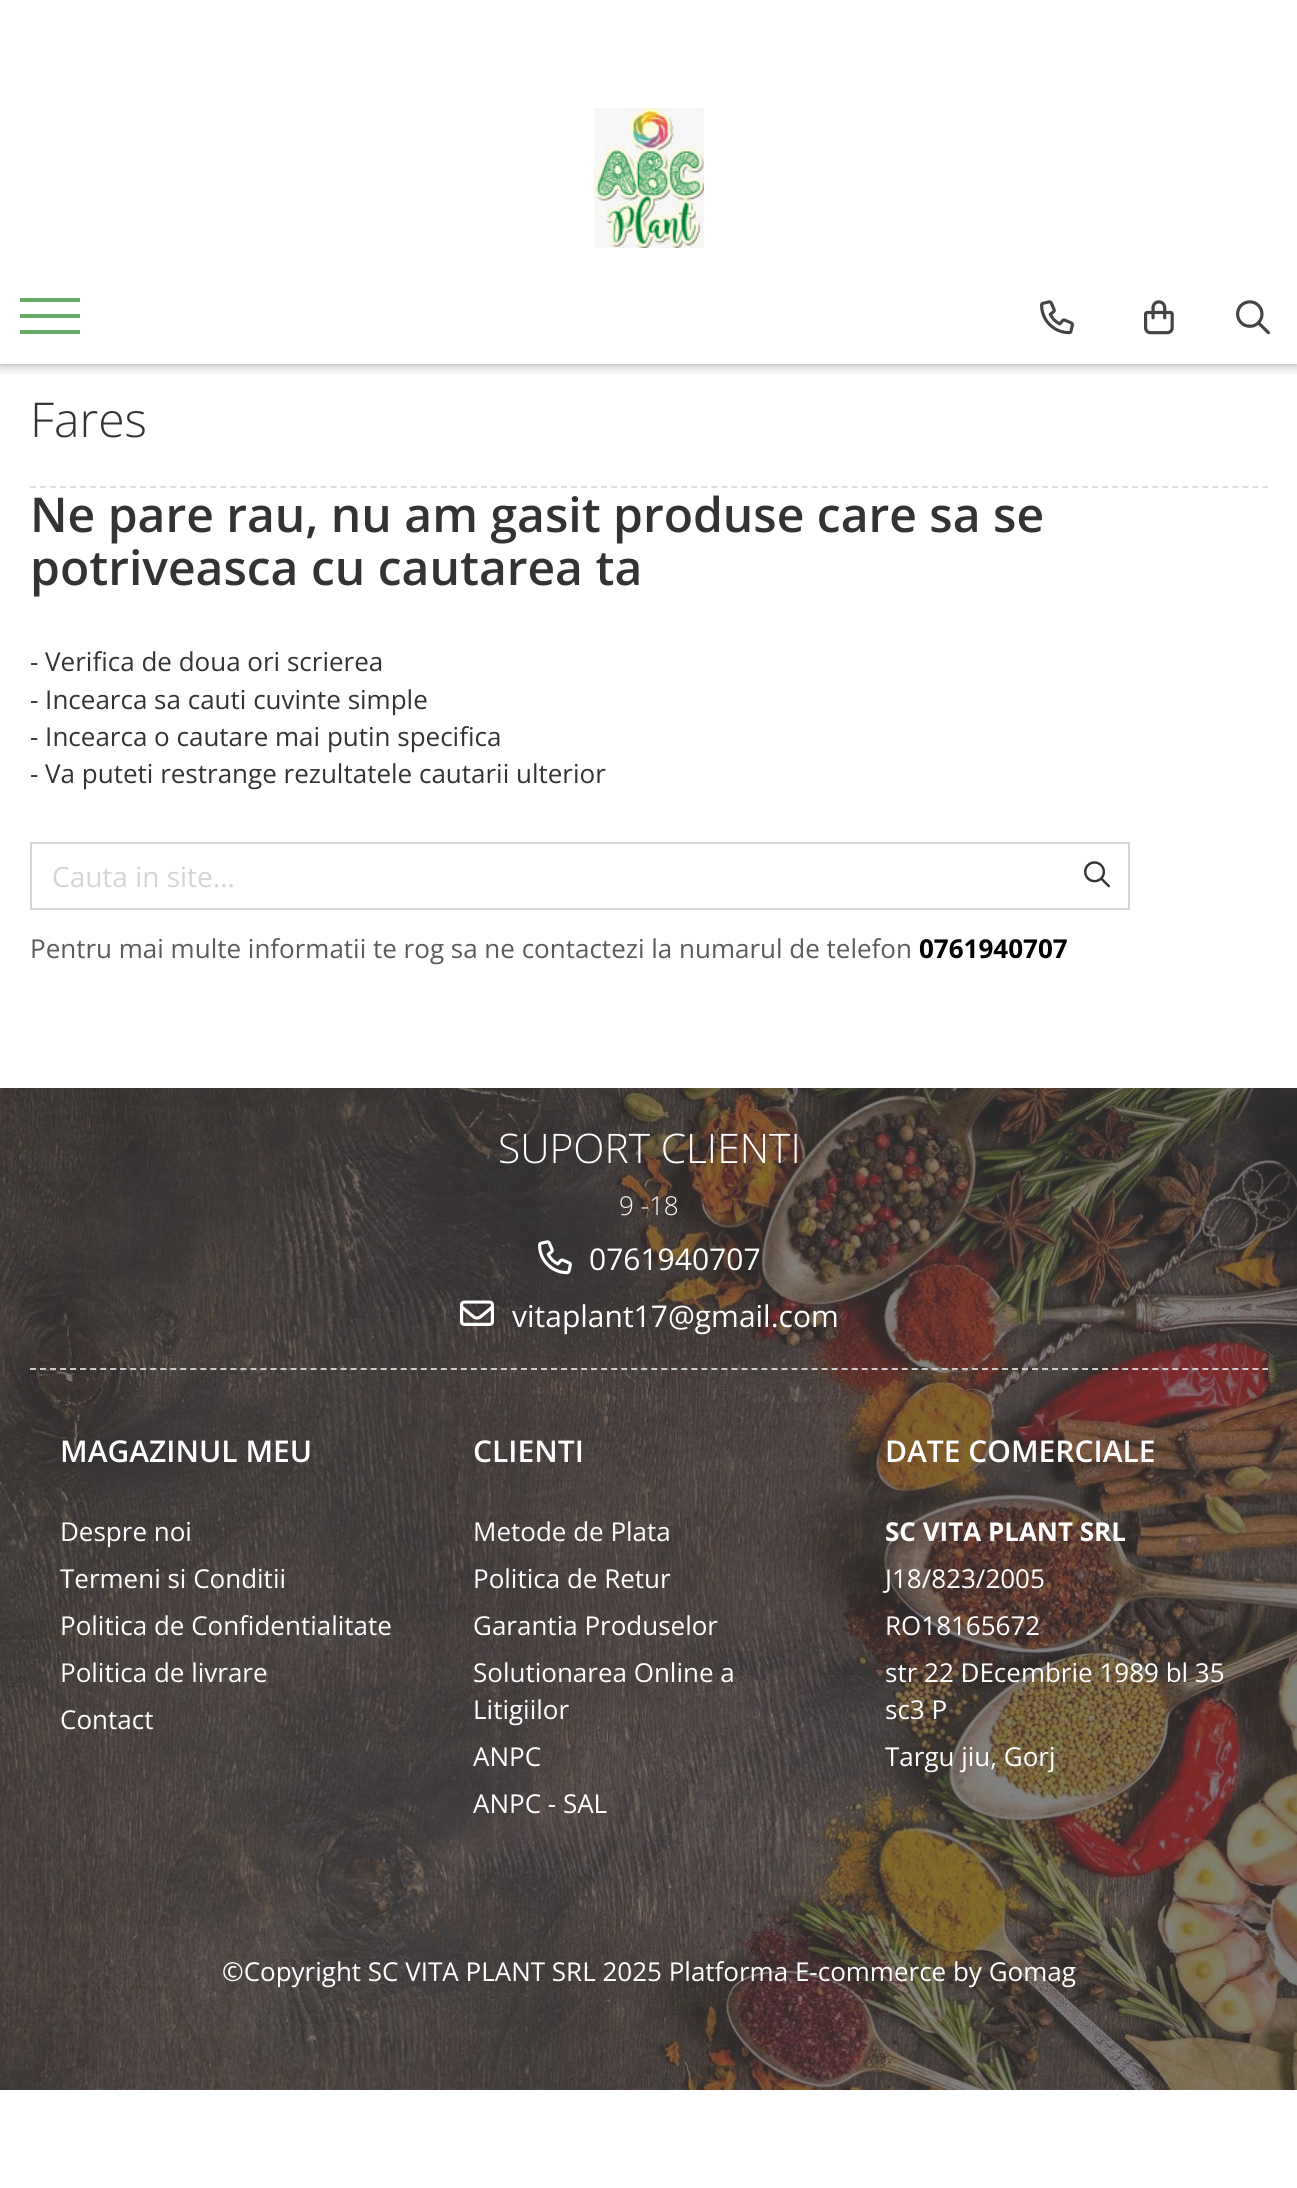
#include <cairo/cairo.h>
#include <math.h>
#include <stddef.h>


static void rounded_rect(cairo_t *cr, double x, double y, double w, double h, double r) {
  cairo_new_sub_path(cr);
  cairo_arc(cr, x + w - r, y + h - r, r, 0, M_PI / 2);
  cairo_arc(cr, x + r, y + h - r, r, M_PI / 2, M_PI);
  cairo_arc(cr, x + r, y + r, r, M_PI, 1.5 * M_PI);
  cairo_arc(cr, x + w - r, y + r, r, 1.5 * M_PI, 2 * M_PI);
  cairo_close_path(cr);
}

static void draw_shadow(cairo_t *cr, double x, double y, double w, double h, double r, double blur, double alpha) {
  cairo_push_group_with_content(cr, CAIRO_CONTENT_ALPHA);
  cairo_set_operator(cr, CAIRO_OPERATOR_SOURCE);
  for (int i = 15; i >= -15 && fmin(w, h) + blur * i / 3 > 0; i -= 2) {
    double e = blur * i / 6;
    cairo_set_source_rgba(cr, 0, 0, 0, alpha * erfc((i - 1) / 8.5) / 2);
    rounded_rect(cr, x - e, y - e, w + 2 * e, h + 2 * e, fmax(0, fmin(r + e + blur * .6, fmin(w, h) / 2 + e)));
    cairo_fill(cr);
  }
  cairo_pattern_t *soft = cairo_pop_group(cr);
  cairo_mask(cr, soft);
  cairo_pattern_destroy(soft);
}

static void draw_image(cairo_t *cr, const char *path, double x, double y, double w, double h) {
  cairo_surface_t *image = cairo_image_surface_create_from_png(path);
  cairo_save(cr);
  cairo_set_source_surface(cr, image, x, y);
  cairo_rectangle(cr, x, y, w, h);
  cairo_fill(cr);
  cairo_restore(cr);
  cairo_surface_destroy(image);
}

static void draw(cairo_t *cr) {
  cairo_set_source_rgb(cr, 1, 1, 1);
  cairo_paint(cr);
  cairo_save(cr);
  cairo_rectangle(cr, 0, 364, 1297, 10);
  cairo_clip(cr);
  cairo_set_source_rgb(cr, 0, 0, 0);
  draw_shadow(cr, 0, 0, 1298, 364, 0, 6, 0.4);
  cairo_restore(cr);
  draw_image(cr, "images/1.png", 594, 108, 110, 140);
  cairo_set_source_rgb(cr, 101 / 255.0, 172 / 255.0, 102 / 255.0);
  cairo_rectangle(cr, 20, 314, 60, 4);
  cairo_fill(cr);
  cairo_rectangle(cr, 20, 298, 60, 4);
  cairo_fill(cr);
  cairo_rectangle(cr, 20, 330, 60, 4);
  cairo_fill(cr);
  draw_image(cr, "images/2.png", 1040, 300, 34, 35);
  draw_image(cr, "images/3.png", 1144, 300, 30, 35);
  draw_image(cr, "images/4.png", 1236, 300, 34, 35);
  cairo_new_path(cr);
  cairo_move_to(cr, 30, 487);
  cairo_line_to(cr, 1268, 487);
  cairo_set_source_rgb(cr, 223 / 255.0, 223 / 255.0, 223 / 255.0);
  cairo_set_dash(cr, (double[]){6, 4.02}, 2, 0);
  cairo_stroke(cr);
  cairo_rectangle(cr, 31, 843, 1098, 66);
  cairo_set_source_rgb(cr, 213 / 255.0, 213 / 255.0, 213 / 255.0);
  cairo_set_dash(cr, NULL, 0, 0);
  cairo_stroke(cr);
  draw_image(cr, "images/5.png", 1084, 861, 26, 27);
  draw_image(cr, "images/6.png", 0, 1088, 1297, 1002);
  cairo_set_source_rgba(cr, 62 / 255.0, 62 / 255.0, 62 / 255.0, 0.65);
  cairo_rectangle(cr, 0, 1088, 1297, 282);
  cairo_fill(cr);
  cairo_new_path(cr);
  cairo_move_to(cr, 30, 1369);
  cairo_line_to(cr, 1268, 1369);
  cairo_set_source_rgb(cr, 204 / 255.0, 204 / 255.0, 204 / 255.0);
  cairo_set_dash(cr, (double[]){6, 4.02}, 2, 0);
  cairo_stroke(cr);
  draw_image(cr, "images/7.png", 538, 1240, 34, 35);
  draw_image(cr, "images/8.png", 460, 1300, 34, 26);
  cairo_set_source_rgba(cr, 62 / 255.0, 62 / 255.0, 62 / 255.0, 0.65);
  cairo_rectangle(cr, 0, 1370, 1297, 720);
  cairo_fill(cr);
  cairo_select_font_face(cr, "Open Sans Light", CAIRO_FONT_SLANT_NORMAL, CAIRO_FONT_WEIGHT_NORMAL);
  cairo_set_font_size(cr, 48);
  cairo_set_source_rgb(cr, 51 / 255.0, 51 / 255.0, 51 / 255.0);
  cairo_move_to(cr, 30, 437);
  cairo_show_text(cr, "Fares");
  cairo_select_font_face(cr, "Open Sans SemiBold", CAIRO_FONT_SLANT_NORMAL, CAIRO_FONT_WEIGHT_NORMAL);
  cairo_move_to(cr, 30, 532);
  cairo_show_text(cr, "Ne pare rau, nu am gasit produse care sa se");
  cairo_move_to(cr, 30, 585);
  cairo_show_text(cr, "potriveasca cu cautarea ta");
  cairo_select_font_face(cr, "Open Sans", CAIRO_FONT_SLANT_NORMAL, CAIRO_FONT_WEIGHT_NORMAL);
  cairo_set_font_size(cr, 26);
  cairo_move_to(cr, 30, 671);
  cairo_show_text(cr, "- Verifica de doua ori scrierea");
  cairo_move_to(cr, 30, 709);
  cairo_show_text(cr, "- Incearca sa cauti cuvinte simple");
  cairo_move_to(cr, 30, 746);
  cairo_show_text(cr, "- Incearca o cautare mai putin specifica");
  cairo_move_to(cr, 30, 783);
  cairo_show_text(cr, "- Va puteti restrange rezultatele cautarii ulterior");
  cairo_set_font_size(cr, 28);
  cairo_set_source_rgb(cr, 213 / 255.0, 213 / 255.0, 213 / 255.0);
  cairo_move_to(cr, 52, 887);
  cairo_show_text(cr, "Cauta in site...");
  cairo_set_font_size(cr, 26);
  cairo_set_source_rgb(cr, 91 / 255.0, 91 / 255.0, 91 / 255.0);
  cairo_move_to(cr, 30, 958);
  cairo_show_text(cr, "Pentru mai multe informatii te rog sa ne contactezi la numarul de telefon");
  cairo_select_font_face(cr, "Open Sans", CAIRO_FONT_SLANT_NORMAL, CAIRO_FONT_WEIGHT_BOLD);
  cairo_set_source_rgb(cr, 0, 0, 0);
  cairo_move_to(cr, 919, 958);
  cairo_show_text(cr, "0761940707");
  cairo_select_font_face(cr, "Open Sans Light", CAIRO_FONT_SLANT_NORMAL, CAIRO_FONT_WEIGHT_NORMAL);
  cairo_set_font_size(cr, 40.75);
  cairo_set_source_rgb(cr, 1, 1, 1);
  cairo_move_to(cr, 498, 1163);
  cairo_show_text(cr, "SUPORT CLIENTI");
  cairo_set_font_size(cr, 26);
  cairo_move_to(cr, 619, 1215);
  cairo_show_text(cr, "9 -18");
  cairo_select_font_face(cr, "Open Sans", CAIRO_FONT_SLANT_NORMAL, CAIRO_FONT_WEIGHT_NORMAL);
  cairo_set_font_size(cr, 30);
  cairo_move_to(cr, 589, 1270);
  cairo_show_text(cr, "0761940707");
  cairo_move_to(cr, 512, 1327);
  cairo_show_text(cr, "vitaplant17@gmail.com");
  cairo_select_font_face(cr, "Open Sans SemiBold", CAIRO_FONT_SLANT_NORMAL, CAIRO_FONT_WEIGHT_NORMAL);
  cairo_move_to(cr, 60, 1462);
  cairo_show_text(cr, "MAGAZINUL MEU");
  cairo_select_font_face(cr, "Open Sans", CAIRO_FONT_SLANT_NORMAL, CAIRO_FONT_WEIGHT_NORMAL);
  cairo_set_font_size(cr, 26);
  cairo_move_to(cr, 60, 1541);
  cairo_show_text(cr, "Despre noi");
  cairo_move_to(cr, 60, 1588);
  cairo_show_text(cr, "Termeni si Conditii");
  cairo_move_to(cr, 60, 1635);
  cairo_show_text(cr, "Politica de Confidentialitate");
  cairo_move_to(cr, 60, 1682);
  cairo_show_text(cr, "Politica de livrare");
  cairo_move_to(cr, 60, 1729);
  cairo_show_text(cr, "Contact");
  cairo_select_font_face(cr, "Open Sans SemiBold", CAIRO_FONT_SLANT_NORMAL, CAIRO_FONT_WEIGHT_NORMAL);
  cairo_set_font_size(cr, 30);
  cairo_move_to(cr, 473, 1462);
  cairo_show_text(cr, "CLIENTI");
  cairo_select_font_face(cr, "Open Sans", CAIRO_FONT_SLANT_NORMAL, CAIRO_FONT_WEIGHT_NORMAL);
  cairo_set_font_size(cr, 26);
  cairo_move_to(cr, 473, 1541);
  cairo_show_text(cr, "Metode de Plata");
  cairo_move_to(cr, 473, 1588);
  cairo_show_text(cr, "Politica de Retur");
  cairo_move_to(cr, 473, 1635);
  cairo_show_text(cr, "Garantia Produselor");
  cairo_move_to(cr, 473, 1682);
  cairo_show_text(cr, "Solutionarea Online a");
  cairo_move_to(cr, 473, 1719);
  cairo_show_text(cr, "Litigiilor");
  cairo_move_to(cr, 473, 1766);
  cairo_show_text(cr, "ANPC");
  cairo_move_to(cr, 473, 1813);
  cairo_show_text(cr, "ANPC - SAL");
  cairo_select_font_face(cr, "Open Sans SemiBold", CAIRO_FONT_SLANT_NORMAL, CAIRO_FONT_WEIGHT_NORMAL);
  cairo_set_font_size(cr, 30);
  cairo_move_to(cr, 885, 1462);
  cairo_show_text(cr, "DATE COMERCIALE");
  cairo_select_font_face(cr, "Open Sans", CAIRO_FONT_SLANT_NORMAL, CAIRO_FONT_WEIGHT_BOLD);
  cairo_set_font_size(cr, 26);
  cairo_move_to(cr, 885, 1541);
  cairo_show_text(cr, "SC VITA PLANT SRL");
  cairo_select_font_face(cr, "Open Sans", CAIRO_FONT_SLANT_NORMAL, CAIRO_FONT_WEIGHT_NORMAL);
  cairo_move_to(cr, 885, 1588);
  cairo_show_text(cr, "J18/823/2005");
  cairo_move_to(cr, 885, 1635);
  cairo_show_text(cr, "RO18165672");
  cairo_move_to(cr, 885, 1682);
  cairo_show_text(cr, "str 22 DEcembrie 1989 bl 35");
  cairo_move_to(cr, 885, 1719);
  cairo_show_text(cr, "sc3 P");
  cairo_move_to(cr, 885, 1766);
  cairo_show_text(cr, "Targu jiu, Gorj");
  cairo_move_to(cr, 222, 1981);
  cairo_show_text(cr, "©Copyright SC VITA PLANT SRL 2025 Platforma E-commerce by Gomag");
}

int main(void) {
  cairo_surface_t *surface = cairo_image_surface_create(CAIRO_FORMAT_RGB24, 1297, 2188);
  cairo_t *cr = cairo_create(surface);
  cairo_font_options_t *options = cairo_font_options_create();
  cairo_font_options_set_hint_metrics(options, CAIRO_HINT_METRICS_OFF);
  cairo_font_options_set_hint_style(options, CAIRO_HINT_STYLE_NONE);
  cairo_set_font_options(cr, options);
  cairo_set_miter_limit(cr, 4);
  draw(cr);
  cairo_surface_write_to_png(surface, "out.png");
  cairo_font_options_destroy(options);
  cairo_destroy(cr);
  cairo_surface_destroy(surface);
  return 0;
}
